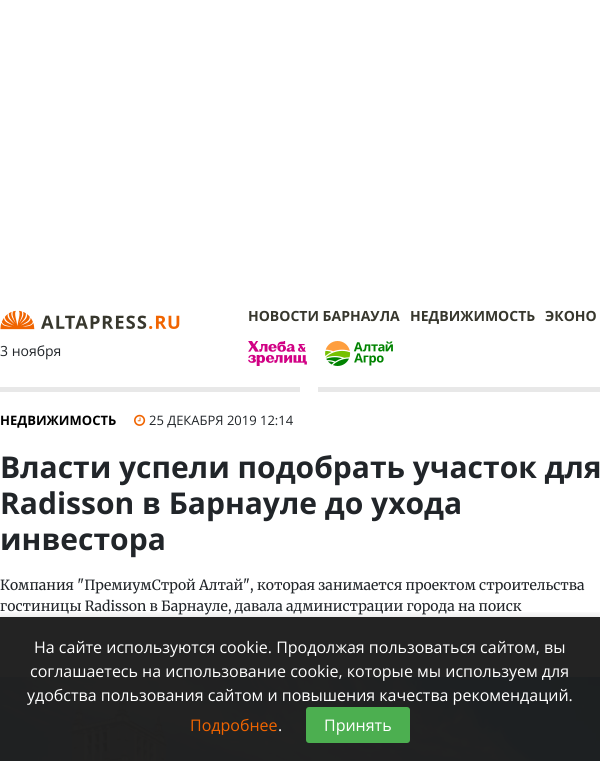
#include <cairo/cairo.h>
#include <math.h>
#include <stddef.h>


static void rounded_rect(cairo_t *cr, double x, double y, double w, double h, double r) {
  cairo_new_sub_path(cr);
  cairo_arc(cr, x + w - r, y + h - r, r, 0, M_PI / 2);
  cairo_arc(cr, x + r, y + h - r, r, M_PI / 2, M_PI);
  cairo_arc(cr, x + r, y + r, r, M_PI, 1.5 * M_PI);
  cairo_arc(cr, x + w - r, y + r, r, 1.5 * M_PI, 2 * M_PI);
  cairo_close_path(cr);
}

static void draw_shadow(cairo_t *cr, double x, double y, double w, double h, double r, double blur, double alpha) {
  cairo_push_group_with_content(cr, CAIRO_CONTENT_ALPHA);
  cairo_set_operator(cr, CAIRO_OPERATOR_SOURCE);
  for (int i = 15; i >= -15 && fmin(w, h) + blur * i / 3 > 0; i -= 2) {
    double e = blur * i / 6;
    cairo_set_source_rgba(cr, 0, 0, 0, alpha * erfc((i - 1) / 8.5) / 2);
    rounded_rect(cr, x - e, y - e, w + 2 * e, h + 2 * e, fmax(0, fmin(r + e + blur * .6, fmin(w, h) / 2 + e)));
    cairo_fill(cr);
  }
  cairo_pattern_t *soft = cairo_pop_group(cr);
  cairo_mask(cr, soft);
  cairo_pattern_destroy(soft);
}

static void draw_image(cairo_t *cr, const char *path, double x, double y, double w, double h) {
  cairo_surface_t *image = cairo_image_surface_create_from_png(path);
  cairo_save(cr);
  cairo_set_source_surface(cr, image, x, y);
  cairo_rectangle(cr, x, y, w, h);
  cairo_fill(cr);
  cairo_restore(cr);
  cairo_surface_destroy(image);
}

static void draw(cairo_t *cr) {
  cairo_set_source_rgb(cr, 1, 1, 1);
  cairo_paint(cr);
  cairo_set_source_rgb(cr, 35 / 255.0, 35 / 255.0, 35 / 255.0);
  cairo_rectangle(cr, 0, 617, 600, 60);
  cairo_fill(cr);
  draw_image(cr, "images/1.png", 0, 310, 180, 20);
  draw_image(cr, "images/2.png", 248, 341, 59, 25);
  draw_image(cr, "images/3.png", 325, 341, 68, 25);
  cairo_set_source_rgb(cr, 232 / 255.0, 232 / 255.0, 232 / 255.0);
  cairo_rectangle(cr, 0, 387, 300, 5);
  cairo_fill(cr);
  cairo_rectangle(cr, 318, 387, 282, 5);
  cairo_fill(cr);
  draw_image(cr, "images/4.png", 134, 414, 12, 12);
  draw_image(cr, "images/5.png", 0, 677, 600, 84);
  cairo_save(cr);
  cairo_rectangle(cr, 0, 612, 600, 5);
  cairo_clip(cr);
  cairo_set_source_rgb(cr, 0, 0, 0);
  draw_shadow(cr, 0, 615, 600, 144, 0, 4, 0.1);
  cairo_restore(cr);
  cairo_set_source_rgb(cr, 76 / 255.0, 175 / 255.0, 80 / 255.0);
  rounded_rect(cr, 306, 707, 104, 36, 3);
  cairo_fill(cr);
  cairo_select_font_face(cr, "Open Sans", CAIRO_FONT_SLANT_NORMAL, CAIRO_FONT_WEIGHT_BOLD);
  cairo_set_font_size(cr, 14);
  cairo_set_source_rgb(cr, 55 / 255.0, 55 / 255.0, 45 / 255.0);
  cairo_move_to(cr, 248, 321);
  cairo_show_text(cr, "НОВОСТИ БАРНАУЛА");
  cairo_move_to(cr, 410, 321);
  cairo_show_text(cr, "НЕДВИЖИМОСТЬ");
  cairo_move_to(cr, 545, 321);
  cairo_show_text(cr, "ЭКОНО");
  cairo_select_font_face(cr, "Open Sans", CAIRO_FONT_SLANT_NORMAL, CAIRO_FONT_WEIGHT_NORMAL);
  cairo_set_source_rgb(cr, 33 / 255.0, 37 / 255.0, 41 / 255.0);
  cairo_move_to(cr, 0, 356);
  cairo_show_text(cr, "3 ноября");
  cairo_select_font_face(cr, "Open Sans", CAIRO_FONT_SLANT_NORMAL, CAIRO_FONT_WEIGHT_BOLD);
  cairo_set_font_size(cr, 13);
  cairo_set_source_rgb(cr, 0, 0, 0);
  cairo_move_to(cr, 0, 425);
  cairo_show_text(cr, "НЕДВИЖИМОСТЬ");
  cairo_select_font_face(cr, "Open Sans", CAIRO_FONT_SLANT_NORMAL, CAIRO_FONT_WEIGHT_NORMAL);
  cairo_set_source_rgb(cr, 33 / 255.0, 37 / 255.0, 41 / 255.0);
  cairo_move_to(cr, 149, 425);
  cairo_show_text(cr, "25 ДЕКАБРЯ 2019 12:14");
  cairo_select_font_face(cr, "Open Sans", CAIRO_FONT_SLANT_NORMAL, CAIRO_FONT_WEIGHT_BOLD);
  cairo_set_font_size(cr, 30);
  cairo_move_to(cr, 0, 478);
  cairo_show_text(cr, "Власти успели подобрать участок для");
  cairo_move_to(cr, 0, 514);
  cairo_show_text(cr, "Radisson в Барнауле до ухода");
  cairo_move_to(cr, 0, 550);
  cairo_show_text(cr, "инвестора");
  cairo_select_font_face(cr, "Merriweather", CAIRO_FONT_SLANT_NORMAL, CAIRO_FONT_WEIGHT_NORMAL);
  cairo_set_font_size(cr, 14);
  cairo_move_to(cr, 0, 590);
  cairo_show_text(cr, "Компания \"ПремиумСтрой Алтай\", которая занимается проектом строительства");
  cairo_move_to(cr, 0, 611);
  cairo_show_text(cr, "гостиницы Radisson в Барнауле, давала администрации города на поиск");
  cairo_select_font_face(cr, "Open Sans", CAIRO_FONT_SLANT_NORMAL, CAIRO_FONT_WEIGHT_NORMAL);
  cairo_set_font_size(cr, 16);
  cairo_set_source_rgb(cr, 1, 1, 1);
  cairo_move_to(cr, 34, 653);
  cairo_show_text(cr, "На сайте используются cookie. Продолжая пользоваться сайтом, вы");
  cairo_move_to(cr, 30, 677);
  cairo_show_text(cr, "соглашаетесь на использование cookie, которые мы используем для");
  cairo_move_to(cr, 27, 701);
  cairo_show_text(cr, "удобства пользования сайтом и повышения качества рекомендаций.");
  cairo_set_source_rgb(cr, 240 / 255.0, 100 / 255.0, 0);
  cairo_move_to(cr, 190, 731);
  cairo_show_text(cr, "Подробнее");
  cairo_set_source_rgb(cr, 1, 1, 1);
  cairo_move_to(cr, 278, 731);
  cairo_show_text(cr, ".");
  cairo_move_to(cr, 324, 731);
  cairo_show_text(cr, "Принять");
}

int main(void) {
  cairo_surface_t *surface = cairo_image_surface_create(CAIRO_FORMAT_RGB24, 600, 761);
  cairo_t *cr = cairo_create(surface);
  cairo_font_options_t *options = cairo_font_options_create();
  cairo_font_options_set_hint_metrics(options, CAIRO_HINT_METRICS_OFF);
  cairo_font_options_set_hint_style(options, CAIRO_HINT_STYLE_NONE);
  cairo_set_font_options(cr, options);
  cairo_set_miter_limit(cr, 4);
  draw(cr);
  cairo_surface_write_to_png(surface, "out.png");
  cairo_font_options_destroy(options);
  cairo_destroy(cr);
  cairo_surface_destroy(surface);
  return 0;
}
